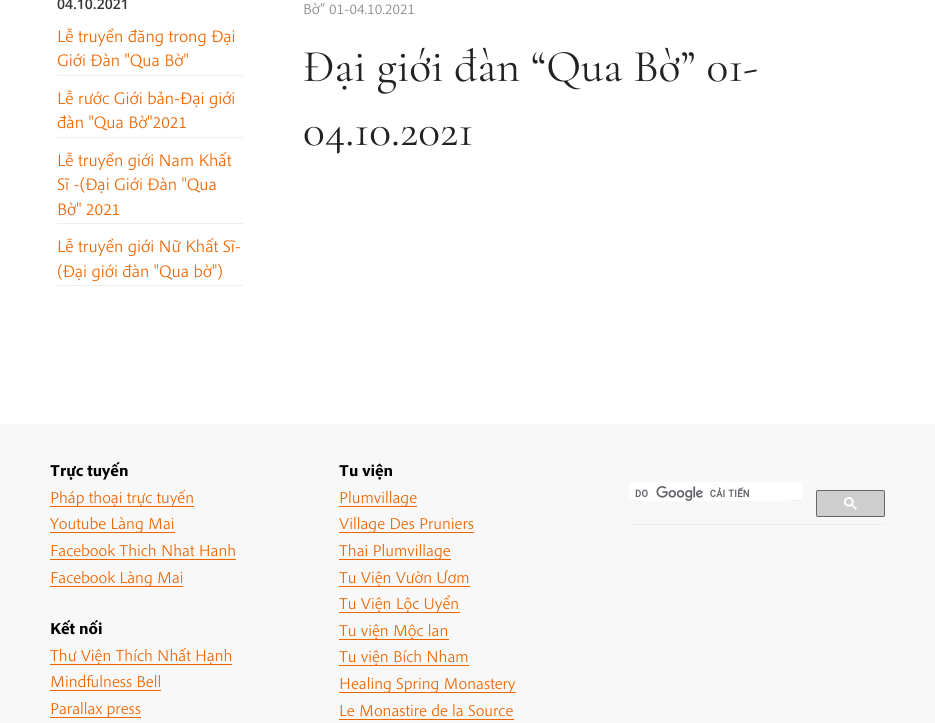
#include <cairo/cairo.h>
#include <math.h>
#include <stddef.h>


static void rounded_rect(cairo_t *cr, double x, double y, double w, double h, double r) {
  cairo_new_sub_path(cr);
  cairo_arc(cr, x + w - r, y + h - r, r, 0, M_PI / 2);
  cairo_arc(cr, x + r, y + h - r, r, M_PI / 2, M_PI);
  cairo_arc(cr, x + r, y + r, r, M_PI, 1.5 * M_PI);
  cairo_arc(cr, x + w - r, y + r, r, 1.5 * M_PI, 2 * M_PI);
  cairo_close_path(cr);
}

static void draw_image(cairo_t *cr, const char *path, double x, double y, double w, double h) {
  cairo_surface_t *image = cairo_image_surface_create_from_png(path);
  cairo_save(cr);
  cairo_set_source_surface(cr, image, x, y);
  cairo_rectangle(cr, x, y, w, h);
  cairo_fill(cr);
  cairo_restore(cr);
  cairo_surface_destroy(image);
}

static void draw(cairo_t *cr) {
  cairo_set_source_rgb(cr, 1, 1, 1);
  cairo_paint(cr);
  cairo_set_source_rgb(cr, 238 / 255.0, 238 / 255.0, 238 / 255.0);
  cairo_rectangle(cr, 57, 75, 186, 1);
  cairo_fill(cr);
  cairo_rectangle(cr, 57, 137, 186, 1);
  cairo_fill(cr);
  cairo_rectangle(cr, 57, 223, 186, 1);
  cairo_fill(cr);
  cairo_rectangle(cr, 57, 285, 186, 1);
  cairo_fill(cr);
  cairo_set_source_rgb(cr, 248 / 255.0, 248 / 255.0, 248 / 255.0);
  cairo_rectangle(cr, 0, 424, 935, 299);
  cairo_fill(cr);
  cairo_set_source_rgb(cr, 239 / 255.0, 101 / 255.0, 0);
  cairo_rectangle(cr, 50, 506, 144, 1);
  cairo_fill(cr);
  cairo_rectangle(cr, 50, 532, 125, 1);
  cairo_fill(cr);
  cairo_rectangle(cr, 50, 559, 186, 1);
  cairo_fill(cr);
  cairo_rectangle(cr, 50, 586, 133, 1);
  cairo_fill(cr);
  cairo_rectangle(cr, 50, 664, 182, 1);
  cairo_fill(cr);
  cairo_rectangle(cr, 50, 690, 111, 1);
  cairo_fill(cr);
  cairo_rectangle(cr, 50, 717, 91, 1);
  cairo_fill(cr);
  cairo_rectangle(cr, 339, 506, 78, 1);
  cairo_fill(cr);
  cairo_rectangle(cr, 339, 532, 135, 1);
  cairo_fill(cr);
  cairo_rectangle(cr, 339, 559, 112, 1);
  cairo_fill(cr);
  cairo_rectangle(cr, 339, 586, 131, 1);
  cairo_fill(cr);
  cairo_rectangle(cr, 339, 612, 121, 1);
  cairo_fill(cr);
  cairo_rectangle(cr, 339, 639, 110, 1);
  cairo_fill(cr);
  cairo_rectangle(cr, 339, 665, 130, 1);
  cairo_fill(cr);
  cairo_rectangle(cr, 339, 692, 177, 1);
  cairo_fill(cr);
  cairo_rectangle(cr, 339, 719, 175, 1);
  cairo_fill(cr);
  cairo_set_source_rgb(cr, 238 / 255.0, 238 / 255.0, 238 / 255.0);
  cairo_rectangle(cr, 629, 524, 256, 1);
  cairo_fill(cr);
  cairo_set_source_rgb(cr, 1, 1, 1);
  cairo_rectangle(cr, 629, 482, 173, 18);
  cairo_fill(cr);
  cairo_set_source_rgb(cr, 238 / 255.0, 238 / 255.0, 238 / 255.0);
  cairo_rectangle(cr, 629, 500, 173, 1);
  cairo_fill(cr);
  cairo_set_source_rgb(cr, 1, 1, 1);
  rounded_rect(cr, 635, 485, 157, 16, 3);
  cairo_fill(cr);
  draw_image(cr, "images/1.png", 635, 486, 114, 15);
  cairo_set_source_rgb(cr, 206 / 255.0, 206 / 255.0, 206 / 255.0);
  rounded_rect(cr, 816.5, 490.5, 68, 26, 1.5);
  cairo_fill_preserve(cr);
  cairo_set_source_rgb(cr, 102 / 255.0, 102 / 255.0, 102 / 255.0);
  cairo_set_line_width(cr, 1);
  cairo_stroke(cr);
  draw_image(cr, "images/2.png", 844, 497, 13, 13);
  cairo_select_font_face(cr, "Open Sans SemiBold", CAIRO_FONT_SLANT_NORMAL, CAIRO_FONT_WEIGHT_NORMAL);
  cairo_set_font_size(cr, 14);
  cairo_set_source_rgb(cr, 51 / 255.0, 51 / 255.0, 51 / 255.0);
  cairo_move_to(cr, 57, 9);
  cairo_show_text(cr, "04.10.2021");
  cairo_select_font_face(cr, "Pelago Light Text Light", CAIRO_FONT_SLANT_NORMAL, CAIRO_FONT_WEIGHT_NORMAL);
  cairo_set_font_size(cr, 17.5);
  cairo_set_source_rgb(cr, 239 / 255.0, 101 / 255.0, 0);
  cairo_move_to(cr, 57, 42);
  cairo_show_text(cr, "Lễ truyền đăng trong Đại");
  cairo_move_to(cr, 57, 66);
  cairo_show_text(cr, "Giới Đàn \"Qua Bờ\"");
  cairo_move_to(cr, 57, 104);
  cairo_show_text(cr, "Lễ rước Giới bản-Đại giới");
  cairo_move_to(cr, 57, 128);
  cairo_show_text(cr, "đàn \"Qua Bờ\"2021");
  cairo_move_to(cr, 57, 166);
  cairo_show_text(cr, "Lễ truyền giới Nam Khất");
  cairo_move_to(cr, 57, 190);
  cairo_show_text(cr, "Sĩ -(Đại Giới Đàn \"Qua");
  cairo_move_to(cr, 57, 215);
  cairo_show_text(cr, "Bờ\" 2021");
  cairo_move_to(cr, 57, 252);
  cairo_show_text(cr, "Lễ truyền giới Nữ Khất Sĩ-");
  cairo_move_to(cr, 57, 277);
  cairo_show_text(cr, "(Đại giới đàn \"Qua bờ\")");
  cairo_set_font_size(cr, 15.25);
  cairo_set_source_rgb(cr, 136 / 255.0, 136 / 255.0, 136 / 255.0);
  cairo_move_to(cr, 303, 14);
  cairo_show_text(cr, "Bờ” 01-04.10.2021");
  cairo_select_font_face(cr, "Cormorant Garamond Light", CAIRO_FONT_SLANT_NORMAL, CAIRO_FONT_WEIGHT_NORMAL);
  cairo_set_font_size(cr, 45.5);
  cairo_set_source_rgb(cr, 34 / 255.0, 34 / 255.0, 34 / 255.0);
  cairo_move_to(cr, 303, 81);
  cairo_show_text(cr, "Đại giới đàn “Qua Bờ” 01-");
  cairo_move_to(cr, 303, 145);
  cairo_show_text(cr, "04.10.2021");
  cairo_select_font_face(cr, "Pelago", CAIRO_FONT_SLANT_NORMAL, CAIRO_FONT_WEIGHT_BOLD);
  cairo_set_font_size(cr, 16.6);
  cairo_set_source_rgb(cr, 0, 0, 0);
  cairo_move_to(cr, 50, 476);
  cairo_show_text(cr, "Trực tuyến");
  cairo_select_font_face(cr, "Pelago Light Text Light", CAIRO_FONT_SLANT_NORMAL, CAIRO_FONT_WEIGHT_NORMAL);
  cairo_set_source_rgb(cr, 239 / 255.0, 101 / 255.0, 0);
  cairo_move_to(cr, 50, 503);
  cairo_show_text(cr, "Pháp thoại trực tuyến");
  cairo_move_to(cr, 50, 529);
  cairo_show_text(cr, "Youtube Làng Mai");
  cairo_move_to(cr, 50, 556);
  cairo_show_text(cr, "Facebook Thich Nhat Hanh");
  cairo_move_to(cr, 50, 583);
  cairo_show_text(cr, "Facebook Làng Mai");
  cairo_select_font_face(cr, "Pelago", CAIRO_FONT_SLANT_NORMAL, CAIRO_FONT_WEIGHT_BOLD);
  cairo_set_source_rgb(cr, 0, 0, 0);
  cairo_move_to(cr, 50, 634);
  cairo_show_text(cr, "Kết nối");
  cairo_select_font_face(cr, "Pelago Light Text Light", CAIRO_FONT_SLANT_NORMAL, CAIRO_FONT_WEIGHT_NORMAL);
  cairo_set_source_rgb(cr, 239 / 255.0, 101 / 255.0, 0);
  cairo_move_to(cr, 50, 661);
  cairo_show_text(cr, "Thư Viện Thích Nhất Hạnh");
  cairo_move_to(cr, 50, 687);
  cairo_show_text(cr, "Mindfulness Bell");
  cairo_move_to(cr, 50, 714);
  cairo_show_text(cr, "Parallax press");
  cairo_select_font_face(cr, "Pelago", CAIRO_FONT_SLANT_NORMAL, CAIRO_FONT_WEIGHT_BOLD);
  cairo_set_source_rgb(cr, 0, 0, 0);
  cairo_move_to(cr, 339, 476);
  cairo_show_text(cr, "Tu viện");
  cairo_select_font_face(cr, "Pelago Light Text Light", CAIRO_FONT_SLANT_NORMAL, CAIRO_FONT_WEIGHT_NORMAL);
  cairo_set_source_rgb(cr, 239 / 255.0, 101 / 255.0, 0);
  cairo_move_to(cr, 339, 503);
  cairo_show_text(cr, "Plumvillage");
  cairo_move_to(cr, 339, 529);
  cairo_show_text(cr, "Village Des Pruniers");
  cairo_move_to(cr, 339, 556);
  cairo_show_text(cr, "Thai Plumvillage");
  cairo_move_to(cr, 339, 583);
  cairo_show_text(cr, "Tu Viện Vườn Ươm");
  cairo_move_to(cr, 339, 609);
  cairo_show_text(cr, "Tu Viện Lộc Uyển");
  cairo_move_to(cr, 339, 636);
  cairo_show_text(cr, "Tu viện Mộc lan");
  cairo_move_to(cr, 339, 662);
  cairo_show_text(cr, "Tu viện Bích Nham");
  cairo_move_to(cr, 339, 689);
  cairo_show_text(cr, "Healing Spring Monastery");
  cairo_move_to(cr, 339, 716);
  cairo_show_text(cr, "Le Monastire de la Source");
}

int main(void) {
  cairo_surface_t *surface = cairo_image_surface_create(CAIRO_FORMAT_RGB24, 935, 723);
  cairo_t *cr = cairo_create(surface);
  cairo_font_options_t *options = cairo_font_options_create();
  cairo_font_options_set_hint_metrics(options, CAIRO_HINT_METRICS_OFF);
  cairo_font_options_set_hint_style(options, CAIRO_HINT_STYLE_NONE);
  cairo_set_font_options(cr, options);
  cairo_set_miter_limit(cr, 4);
  draw(cr);
  cairo_surface_write_to_png(surface, "out.png");
  cairo_font_options_destroy(options);
  cairo_destroy(cr);
  cairo_surface_destroy(surface);
  return 0;
}
